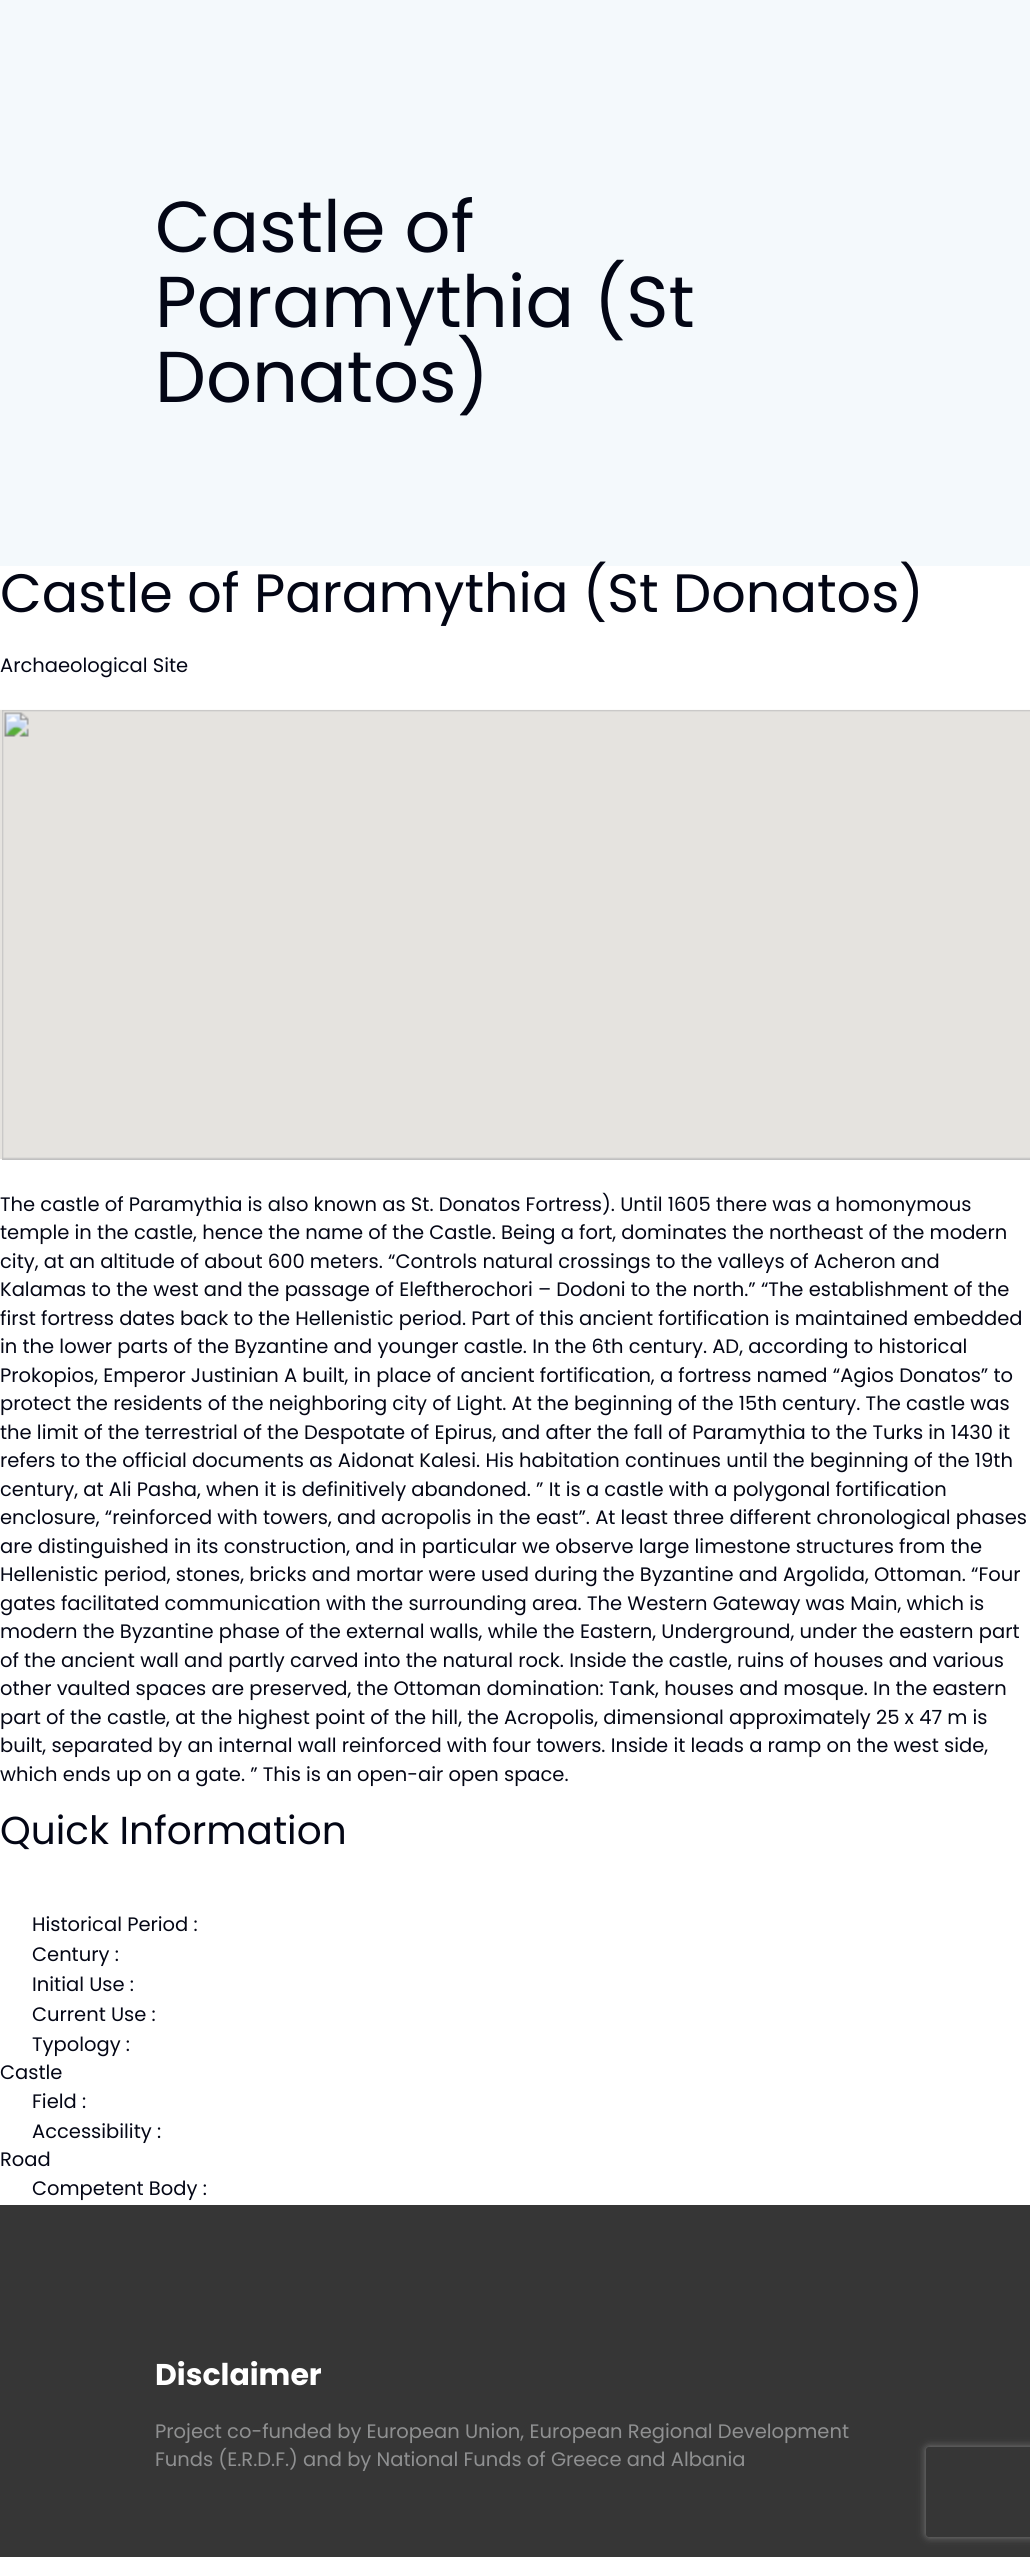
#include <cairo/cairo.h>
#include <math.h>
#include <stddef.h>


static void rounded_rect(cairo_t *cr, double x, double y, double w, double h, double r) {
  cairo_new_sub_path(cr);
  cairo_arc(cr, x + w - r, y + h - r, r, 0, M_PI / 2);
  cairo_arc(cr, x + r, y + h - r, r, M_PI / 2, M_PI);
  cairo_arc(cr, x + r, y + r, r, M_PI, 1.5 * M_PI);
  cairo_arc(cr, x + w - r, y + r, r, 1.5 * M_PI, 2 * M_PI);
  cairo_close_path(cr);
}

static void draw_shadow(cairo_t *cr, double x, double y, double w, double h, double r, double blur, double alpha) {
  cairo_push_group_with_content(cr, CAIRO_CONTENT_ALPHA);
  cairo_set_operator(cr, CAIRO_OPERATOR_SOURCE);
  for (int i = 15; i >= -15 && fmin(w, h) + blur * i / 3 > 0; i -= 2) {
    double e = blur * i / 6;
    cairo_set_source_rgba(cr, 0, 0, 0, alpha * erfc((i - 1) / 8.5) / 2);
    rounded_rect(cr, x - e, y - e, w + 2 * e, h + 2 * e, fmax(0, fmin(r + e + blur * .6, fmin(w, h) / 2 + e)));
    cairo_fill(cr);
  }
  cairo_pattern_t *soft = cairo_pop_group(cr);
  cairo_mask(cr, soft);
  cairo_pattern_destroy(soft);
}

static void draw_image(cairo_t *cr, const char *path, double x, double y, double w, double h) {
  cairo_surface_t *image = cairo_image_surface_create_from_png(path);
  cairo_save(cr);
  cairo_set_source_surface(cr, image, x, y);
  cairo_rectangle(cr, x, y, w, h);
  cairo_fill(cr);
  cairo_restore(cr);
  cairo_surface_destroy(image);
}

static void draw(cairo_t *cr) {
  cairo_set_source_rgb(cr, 1, 1, 1);
  cairo_paint(cr);
  cairo_set_source_rgb(cr, 244 / 255.0, 249 / 255.0, 252 / 255.0);
  cairo_rectangle(cr, 0, 0, 1030, 566);
  cairo_fill(cr);
  draw_image(cr, "images/1.png", 0, 709, 1030, 451);
  cairo_set_source_rgb(cr, 54 / 255.0, 54 / 255.0, 54 / 255.0);
  cairo_rectangle(cr, 0, 2205, 1030, 352);
  cairo_fill(cr);
  cairo_save(cr);
  cairo_set_fill_rule(cr, CAIRO_FILL_RULE_EVEN_ODD);
  cairo_new_path(cr);
  cairo_move_to(cr, 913, 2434);
  cairo_line_to(cr, 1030, 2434);
  cairo_line_to(cr, 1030, 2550);
  cairo_line_to(cr, 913, 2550);
  cairo_close_path(cr);
  cairo_move_to(cr, 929, 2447);
  cairo_line_to(cr, 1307, 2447);
  cairo_curve_to(cr, 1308.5, 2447, 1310, 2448.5, 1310, 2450);
  cairo_line_to(cr, 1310, 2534);
  cairo_curve_to(cr, 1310, 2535.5, 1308.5, 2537, 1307, 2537);
  cairo_line_to(cr, 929, 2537);
  cairo_curve_to(cr, 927.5, 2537, 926, 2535.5, 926, 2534);
  cairo_line_to(cr, 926, 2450);
  cairo_curve_to(cr, 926, 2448.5, 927.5, 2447, 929, 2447);
  cairo_close_path(cr);
  cairo_clip(cr);
  cairo_set_source_rgb(cr, 128 / 255.0, 128 / 255.0, 128 / 255.0);
  draw_shadow(cr, 926, 2447, 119, 90, 3, 4, 1);
  cairo_restore(cr);
  cairo_select_font_face(cr, "Poppins", CAIRO_FONT_SLANT_NORMAL, CAIRO_FONT_WEIGHT_NORMAL);
  cairo_set_font_size(cr, 72);
  cairo_set_source_rgb(cr, 3 / 255.0, 6 / 255.0, 21 / 255.0);
  cairo_move_to(cr, 155, 252);
  cairo_show_text(cr, "Castle of");
  cairo_move_to(cr, 155, 327);
  cairo_show_text(cr, "Paramythia (St");
  cairo_move_to(cr, 155, 402);
  cairo_show_text(cr, "Donatos)");
  cairo_set_font_size(cr, 54);
  cairo_move_to(cr, 0, 612);
  cairo_show_text(cr, "Castle of Paramythia (St Donatos)");
  cairo_set_font_size(cr, 19.5);
  cairo_move_to(cr, 0, 672);
  cairo_show_text(cr, "Archaeological Site");
  cairo_move_to(cr, 0, 1211);
  cairo_show_text(cr, "The castle of Paramythia is also known as St. Donatos Fortress). Until 1605 there was a homonymous");
  cairo_move_to(cr, 0, 1239);
  cairo_show_text(cr, "temple in the castle, hence the name of the Castle. Being a fort, dominates the northeast of the modern");
  cairo_move_to(cr, 0, 1268);
  cairo_show_text(cr, "city, at an altitude of about 600 meters. “Controls natural crossings to the valleys of Acheron and");
  cairo_move_to(cr, 0, 1296);
  cairo_show_text(cr, "Kalamas to the west and the passage of Eleftherochori – Dodoni to the north.” “The establishment of the");
  cairo_move_to(cr, 0, 1325);
  cairo_show_text(cr, "first fortress dates back to the Hellenistic period. Part of this ancient fortification is maintained embedded");
  cairo_move_to(cr, 0, 1353);
  cairo_show_text(cr, "in the lower parts of the Byzantine and younger castle. In the 6th century. AD, according to historical");
  cairo_move_to(cr, 0, 1382);
  cairo_show_text(cr, "Prokopios, Emperor Justinian A built, in place of ancient fortification, a fortress named “Agios Donatos” to");
  cairo_move_to(cr, 0, 1410);
  cairo_show_text(cr, "protect the residents of the neighboring city of Light. At the beginning of the 15th century. The castle was");
  cairo_move_to(cr, 0, 1439);
  cairo_show_text(cr, "the limit of the terrestrial of the Despotate of Epirus, and after the fall of Paramythia to the Turks in 1430 it");
  cairo_move_to(cr, 0, 1467);
  cairo_show_text(cr, "refers to the official documents as Aidonat Kalesi. His habitation continues until the beginning of the 19th");
  cairo_move_to(cr, 0, 1496);
  cairo_show_text(cr, "century, at Ali Pasha, when it is definitively abandoned. ” It is a castle with a polygonal fortification");
  cairo_move_to(cr, 0, 1524);
  cairo_show_text(cr, "enclosure, “reinforced with towers, and acropolis in the east”. At least three different chronological phases");
  cairo_move_to(cr, 0, 1553);
  cairo_show_text(cr, "are distinguished in its construction, and in particular we observe large limestone structures from the");
  cairo_move_to(cr, 0, 1581);
  cairo_show_text(cr, "Hellenistic period, stones, bricks and mortar were used during the Byzantine and Argolida, Ottoman. “Four");
  cairo_move_to(cr, 0, 1610);
  cairo_show_text(cr, "gates facilitated communication with the surrounding area. The Western Gateway was Main, which is");
  cairo_move_to(cr, 0, 1638);
  cairo_show_text(cr, "modern the Byzantine phase of the external walls, while the Eastern, Underground, under the eastern part");
  cairo_move_to(cr, 0, 1667);
  cairo_show_text(cr, "of the ancient wall and partly carved into the natural rock. Inside the castle, ruins of houses and various");
  cairo_move_to(cr, 0, 1695);
  cairo_show_text(cr, "other vaulted spaces are preserved, the Ottoman domination: Tank, houses and mosque. In the eastern");
  cairo_move_to(cr, 0, 1724);
  cairo_show_text(cr, "part of the castle, at the highest point of the hill, the Acropolis, dimensional approximately 25 x 47 m is");
  cairo_move_to(cr, 0, 1752);
  cairo_show_text(cr, "built, separated by an internal wall reinforced with four towers. Inside it leads a ramp on the west side,");
  cairo_move_to(cr, 0, 1781);
  cairo_show_text(cr, "which ends up on a gate. ” This is an open-air open space.");
  cairo_set_font_size(cr, 39);
  cairo_move_to(cr, 0, 1844);
  cairo_show_text(cr, "Quick Information");
  cairo_set_font_size(cr, 19.5);
  cairo_move_to(cr, 32, 1931);
  cairo_show_text(cr, "Historical Period :");
  cairo_move_to(cr, 32, 1961);
  cairo_show_text(cr, "Century :");
  cairo_move_to(cr, 32, 1991);
  cairo_show_text(cr, "Initial Use :");
  cairo_move_to(cr, 32, 2021);
  cairo_show_text(cr, "Current Use :");
  cairo_move_to(cr, 32, 2051);
  cairo_show_text(cr, "Typology :");
  cairo_move_to(cr, 0, 2079);
  cairo_show_text(cr, "Castle");
  cairo_move_to(cr, 32, 2108);
  cairo_show_text(cr, "Field :");
  cairo_move_to(cr, 32, 2138);
  cairo_show_text(cr, "Accessibility :");
  cairo_move_to(cr, 0, 2166);
  cairo_show_text(cr, "Road");
  cairo_move_to(cr, 32, 2195);
  cairo_show_text(cr, "Competent Body :");
  cairo_select_font_face(cr, "Poppins", CAIRO_FONT_SLANT_NORMAL, CAIRO_FONT_WEIGHT_BOLD);
  cairo_set_font_size(cr, 30);
  cairo_set_source_rgb(cr, 1, 1, 1);
  cairo_move_to(cr, 155, 2385);
  cairo_show_text(cr, "Disclaimer");
  cairo_select_font_face(cr, "Poppins", CAIRO_FONT_SLANT_NORMAL, CAIRO_FONT_WEIGHT_NORMAL);
  cairo_set_font_size(cr, 19.5);
  cairo_set_source_rgb(cr, 143 / 255.0, 144 / 255.0, 145 / 255.0);
  cairo_move_to(cr, 155, 2438);
  cairo_show_text(cr, "Project co-funded by European Union, European Regional Development");
  cairo_move_to(cr, 155, 2466);
  cairo_show_text(cr, "Funds (E.R.D.F.) and by National Funds of Greece and Albania");
}

int main(void) {
  cairo_surface_t *surface = cairo_image_surface_create(CAIRO_FORMAT_RGB24, 1030, 2557);
  cairo_t *cr = cairo_create(surface);
  cairo_font_options_t *options = cairo_font_options_create();
  cairo_font_options_set_hint_metrics(options, CAIRO_HINT_METRICS_OFF);
  cairo_font_options_set_hint_style(options, CAIRO_HINT_STYLE_NONE);
  cairo_set_font_options(cr, options);
  cairo_set_miter_limit(cr, 4);
  draw(cr);
  cairo_surface_write_to_png(surface, "out.png");
  cairo_font_options_destroy(options);
  cairo_destroy(cr);
  cairo_surface_destroy(surface);
  return 0;
}
